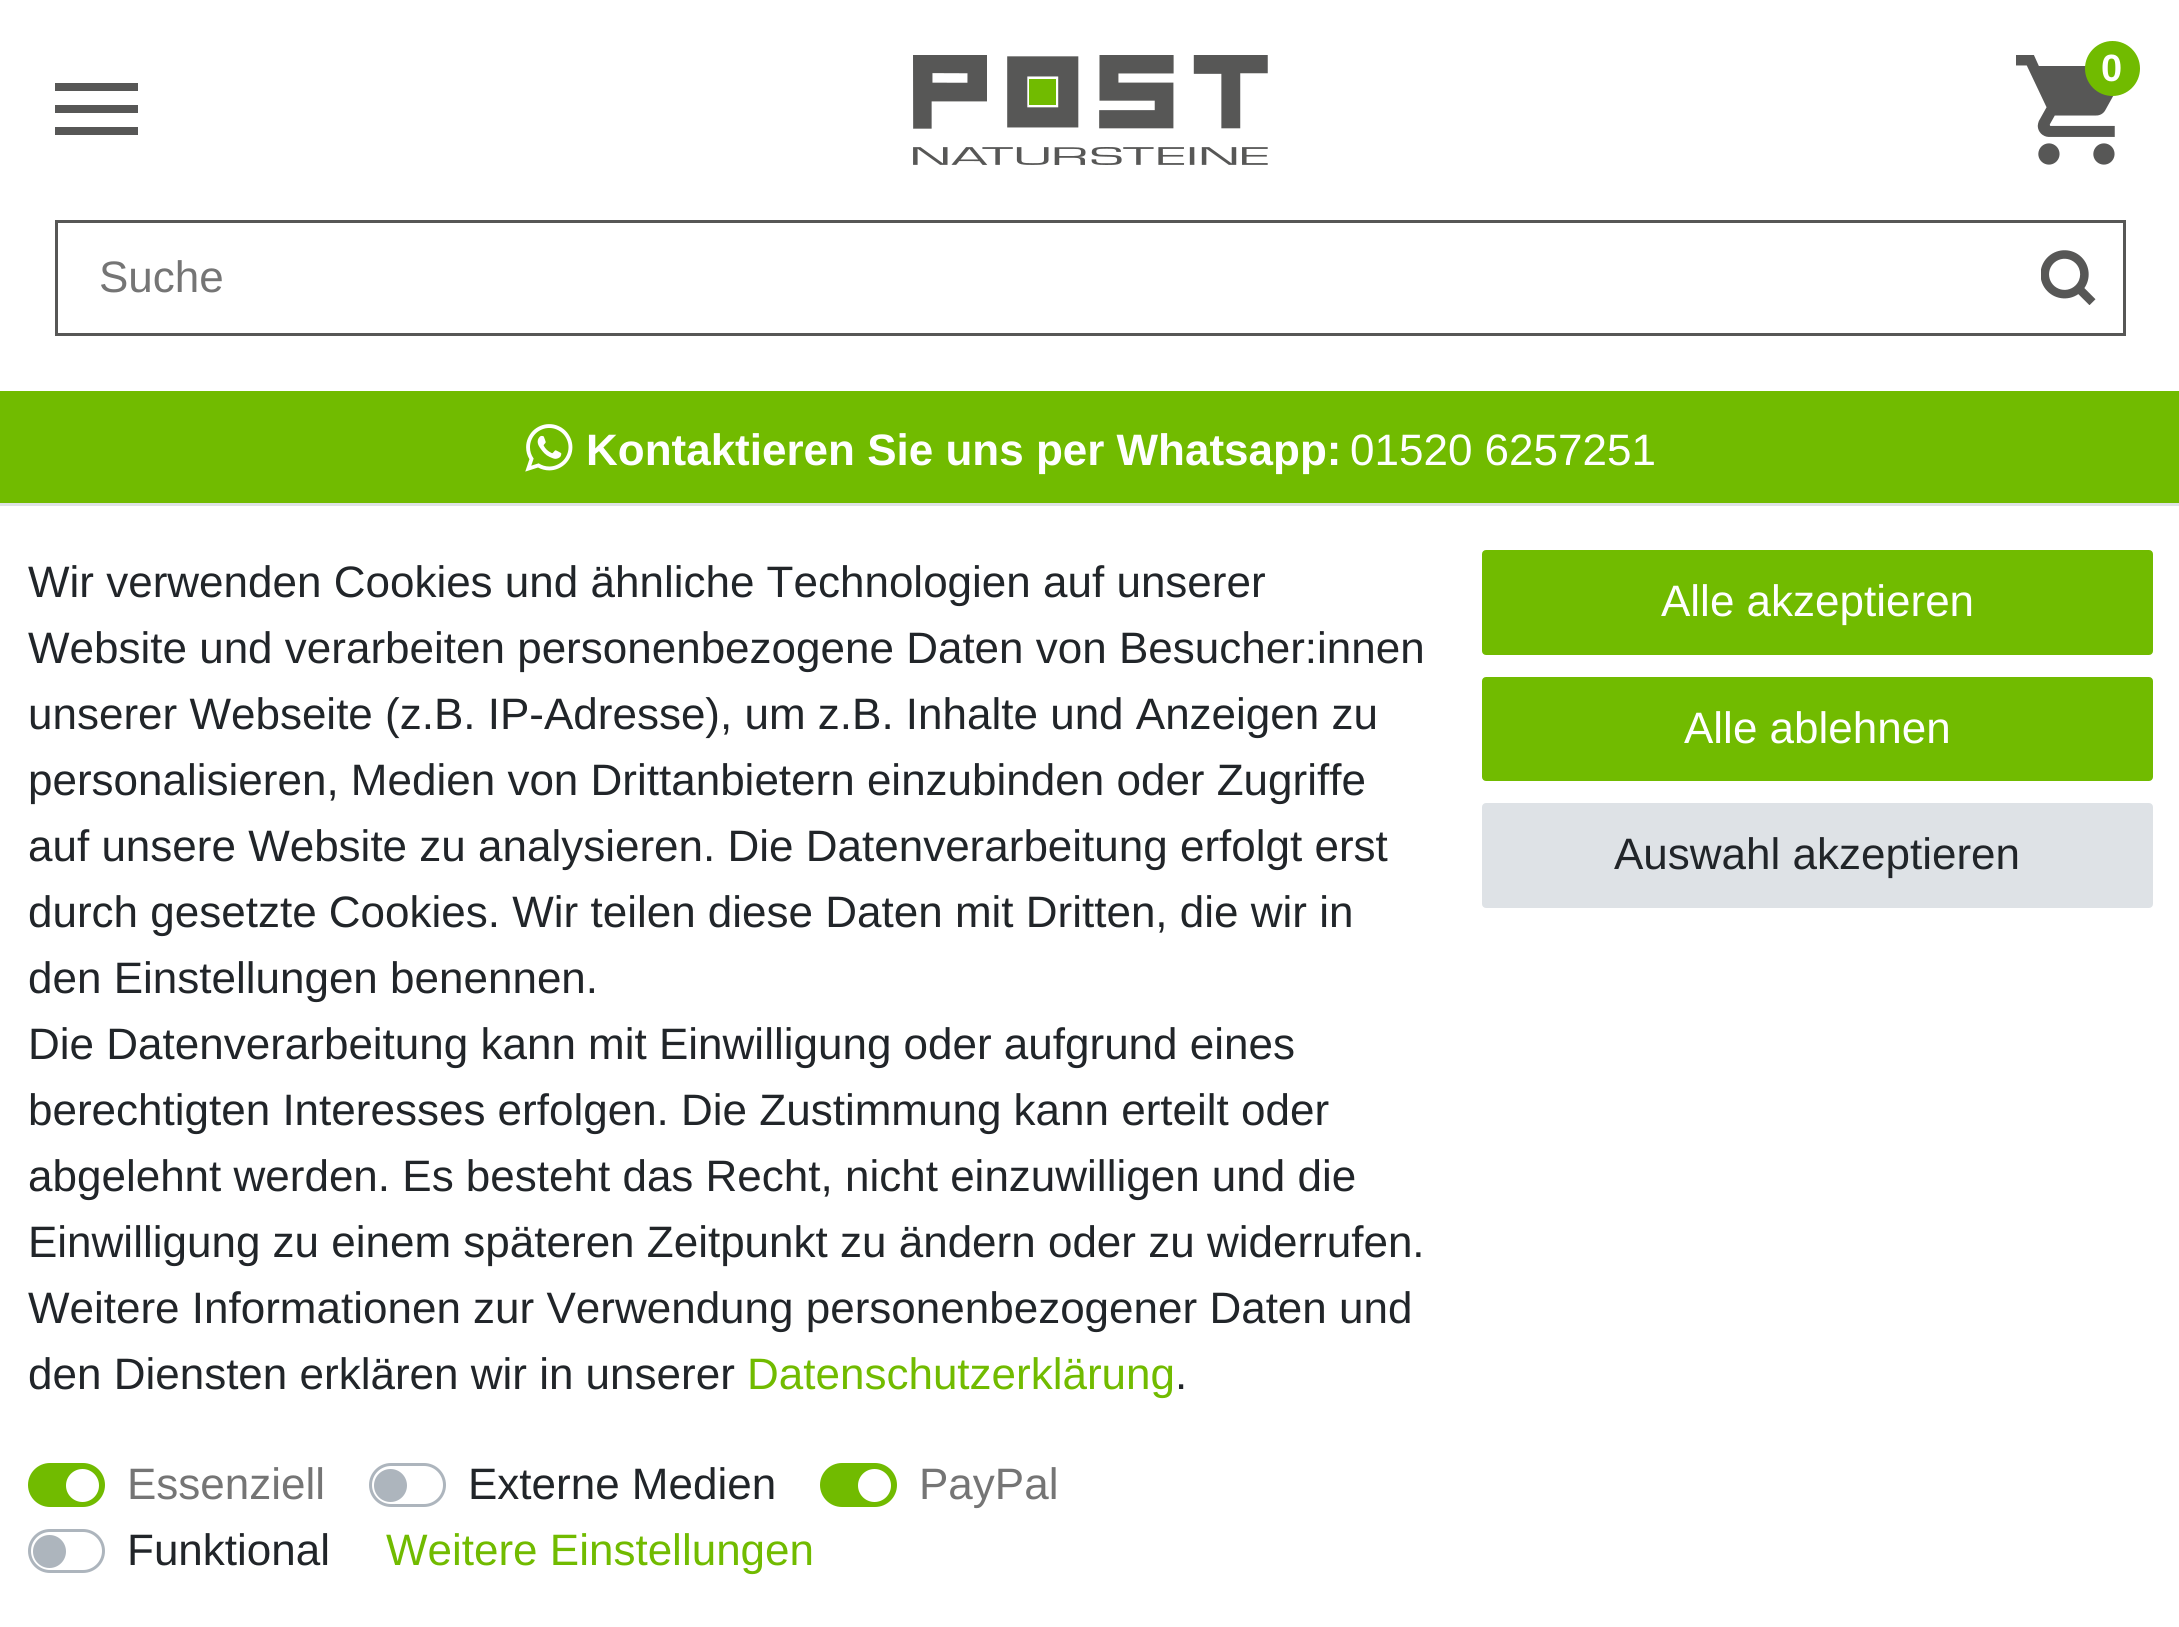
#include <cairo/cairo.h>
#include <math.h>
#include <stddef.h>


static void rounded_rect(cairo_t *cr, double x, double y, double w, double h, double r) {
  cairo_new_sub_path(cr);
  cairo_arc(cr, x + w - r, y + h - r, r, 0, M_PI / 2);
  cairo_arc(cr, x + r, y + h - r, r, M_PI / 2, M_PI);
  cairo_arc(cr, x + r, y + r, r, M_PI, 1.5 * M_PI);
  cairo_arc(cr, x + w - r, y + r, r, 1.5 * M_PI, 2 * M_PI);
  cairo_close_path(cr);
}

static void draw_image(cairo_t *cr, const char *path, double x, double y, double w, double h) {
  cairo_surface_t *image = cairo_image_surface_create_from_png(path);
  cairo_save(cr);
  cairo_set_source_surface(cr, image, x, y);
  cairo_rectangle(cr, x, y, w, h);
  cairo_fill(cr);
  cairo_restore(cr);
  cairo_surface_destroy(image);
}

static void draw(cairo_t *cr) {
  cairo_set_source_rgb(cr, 1, 1, 1);
  cairo_paint(cr);
  cairo_set_source_rgb(cr, 87 / 255.0, 87 / 255.0, 86 / 255.0);
  cairo_rectangle(cr, 55, 105, 83, 8);
  cairo_fill(cr);
  cairo_rectangle(cr, 55, 83, 83, 8);
  cairo_fill(cr);
  cairo_rectangle(cr, 55, 127, 83, 8);
  cairo_fill(cr);
  draw_image(cr, "images/1.png", 913, 55, 355, 110);
  draw_image(cr, "images/2.png", 2016, 55, 99, 110);
  cairo_set_source_rgb(cr, 113 / 255.0, 187 / 255.0, 0);
  cairo_arc(cr, 2112.5, 68.5, 27.5, 0, 2 * M_PI);
  cairo_fill(cr);
  cairo_rectangle(cr, 56.5, 221.5, 2068, 113);
  cairo_set_source_rgb(cr, 87 / 255.0, 87 / 255.0, 86 / 255.0);
  cairo_set_line_width(cr, 3);
  cairo_stroke(cr);
  draw_image(cr, "images/3.png", 2041, 250, 55, 55);
  cairo_set_source_rgb(cr, 113 / 255.0, 187 / 255.0, 0);
  cairo_rectangle(cr, 0, 391, 2179, 112);
  cairo_fill(cr);
  draw_image(cr, "images/4.png", 525, 424, 48, 48);
  cairo_set_source_rgb(cr, 222 / 255.0, 226 / 255.0, 230 / 255.0);
  cairo_rectangle(cr, 0, 503, 2179, 3);
  cairo_fill(cr);
  cairo_set_source_rgb(cr, 113 / 255.0, 187 / 255.0, 0);
  rounded_rect(cr, 29.5, 1464.5, 74, 41, 20.5);
  cairo_fill_preserve(cr);
  cairo_stroke(cr);
  cairo_set_source_rgb(cr, 1, 1, 1);
  cairo_arc(cr, 82.5, 1485.5, 16.5, 0, 2 * M_PI);
  cairo_fill(cr);
  rounded_rect(cr, 370.5, 1464.5, 74, 41, 20.5);
  cairo_set_source_rgb(cr, 173 / 255.0, 181 / 255.0, 189 / 255.0);
  cairo_stroke(cr);
  cairo_arc(cr, 390.5, 1485.5, 16.5, 0, 2 * M_PI);
  cairo_fill(cr);
  cairo_set_source_rgb(cr, 113 / 255.0, 187 / 255.0, 0);
  rounded_rect(cr, 821.5, 1464.5, 74, 41, 20.5);
  cairo_fill_preserve(cr);
  cairo_stroke(cr);
  cairo_set_source_rgb(cr, 1, 1, 1);
  cairo_arc(cr, 874.5, 1485.5, 16.5, 0, 2 * M_PI);
  cairo_fill(cr);
  rounded_rect(cr, 29.5, 1530.5, 74, 41, 20.5);
  cairo_set_source_rgb(cr, 173 / 255.0, 181 / 255.0, 189 / 255.0);
  cairo_stroke(cr);
  cairo_arc(cr, 49.5, 1551.5, 16.5, 0, 2 * M_PI);
  cairo_fill(cr);
  cairo_set_source_rgb(cr, 113 / 255.0, 187 / 255.0, 0);
  rounded_rect(cr, 1483.5, 551.5, 668, 102, 2.5);
  cairo_fill_preserve(cr);
  cairo_stroke(cr);
  rounded_rect(cr, 1483.5, 678.5, 668, 101, 2.5);
  cairo_fill_preserve(cr);
  cairo_stroke(cr);
  cairo_set_source_rgb(cr, 222 / 255.0, 226 / 255.0, 230 / 255.0);
  rounded_rect(cr, 1483.5, 804.5, 668, 102, 2.5);
  cairo_fill_preserve(cr);
  cairo_stroke(cr);
  cairo_select_font_face(cr, "Liberation Sans", CAIRO_FONT_SLANT_NORMAL, CAIRO_FONT_WEIGHT_BOLD);
  cairo_set_font_size(cr, 38);
  cairo_set_source_rgb(cr, 1, 1, 1);
  cairo_move_to(cr, 2101, 81);
  cairo_show_text(cr, "0");
  cairo_select_font_face(cr, "Liberation Sans", CAIRO_FONT_SLANT_NORMAL, CAIRO_FONT_WEIGHT_NORMAL);
  cairo_set_font_size(cr, 44);
  cairo_set_source_rgb(cr, 117 / 255.0, 117 / 255.0, 117 / 255.0);
  cairo_move_to(cr, 99, 292);
  cairo_show_text(cr, "Suche");
  cairo_select_font_face(cr, "Liberation Sans", CAIRO_FONT_SLANT_NORMAL, CAIRO_FONT_WEIGHT_BOLD);
  cairo_set_source_rgb(cr, 1, 1, 1);
  cairo_move_to(cr, 586, 465);
  cairo_show_text(cr, "Kontaktieren Sie uns per Whatsapp:");
  cairo_select_font_face(cr, "Liberation Sans", CAIRO_FONT_SLANT_NORMAL, CAIRO_FONT_WEIGHT_NORMAL);
  cairo_move_to(cr, 1350, 465);
  cairo_show_text(cr, "01520 6257251");
  cairo_set_source_rgb(cr, 33 / 255.0, 37 / 255.0, 41 / 255.0);
  cairo_move_to(cr, 28, 597);
  cairo_show_text(cr, "Wir verwenden Cookies und ähnliche Technologien auf unserer");
  cairo_move_to(cr, 28, 663);
  cairo_show_text(cr, "Website und verarbeiten personenbezogene Daten von Besucher:innen");
  cairo_move_to(cr, 28, 729);
  cairo_show_text(cr, "unserer Webseite (z.B. IP-Adresse), um z.B. Inhalte und Anzeigen zu");
  cairo_move_to(cr, 28, 795);
  cairo_show_text(cr, "personalisieren, Medien von Drittanbietern einzubinden oder Zugriffe");
  cairo_move_to(cr, 28, 861);
  cairo_show_text(cr, "auf unsere Website zu analysieren. Die Datenverarbeitung erfolgt erst");
  cairo_move_to(cr, 28, 927);
  cairo_show_text(cr, "durch gesetzte Cookies. Wir teilen diese Daten mit Dritten, die wir in");
  cairo_move_to(cr, 28, 993);
  cairo_show_text(cr, "den Einstellungen benennen.");
  cairo_move_to(cr, 28, 1059);
  cairo_show_text(cr, "Die Datenverarbeitung kann mit Einwilligung oder aufgrund eines");
  cairo_move_to(cr, 28, 1125);
  cairo_show_text(cr, "berechtigten Interesses erfolgen. Die Zustimmung kann erteilt oder");
  cairo_move_to(cr, 28, 1191);
  cairo_show_text(cr, "abgelehnt werden. Es besteht das Recht, nicht einzuwilligen und die");
  cairo_move_to(cr, 28, 1257);
  cairo_show_text(cr, "Einwilligung zu einem späteren Zeitpunkt zu ändern oder zu widerrufen.");
  cairo_move_to(cr, 28, 1323);
  cairo_show_text(cr, "Weitere Informationen zur Verwendung personenbezogener Daten und");
  cairo_move_to(cr, 28, 1389);
  cairo_show_text(cr, "den Diensten erklären wir in unserer");
  cairo_set_source_rgb(cr, 113 / 255.0, 187 / 255.0, 0);
  cairo_move_to(cr, 747, 1389);
  cairo_show_text(cr, "Datenschutzerklärung");
  cairo_set_source_rgb(cr, 33 / 255.0, 37 / 255.0, 41 / 255.0);
  cairo_move_to(cr, 1175, 1389);
  cairo_show_text(cr, ".");
  cairo_set_source_rgb(cr, 117 / 255.0, 117 / 255.0, 117 / 255.0);
  cairo_move_to(cr, 127, 1499);
  cairo_show_text(cr, "Essenziell");
  cairo_set_source_rgb(cr, 33 / 255.0, 37 / 255.0, 41 / 255.0);
  cairo_move_to(cr, 468, 1499);
  cairo_show_text(cr, "Externe Medien");
  cairo_set_source_rgb(cr, 117 / 255.0, 117 / 255.0, 117 / 255.0);
  cairo_move_to(cr, 919, 1499);
  cairo_show_text(cr, "PayPal");
  cairo_set_source_rgb(cr, 33 / 255.0, 37 / 255.0, 41 / 255.0);
  cairo_move_to(cr, 127, 1565);
  cairo_show_text(cr, "Funktional");
  cairo_set_source_rgb(cr, 113 / 255.0, 187 / 255.0, 0);
  cairo_move_to(cr, 386, 1565);
  cairo_show_text(cr, "Weitere Einstellungen");
  cairo_set_source_rgb(cr, 1, 1, 1);
  cairo_move_to(cr, 1661, 616);
  cairo_show_text(cr, "Alle akzeptieren");
  cairo_move_to(cr, 1684, 743);
  cairo_show_text(cr, "Alle ablehnen");
  cairo_set_source_rgb(cr, 33 / 255.0, 37 / 255.0, 41 / 255.0);
  cairo_move_to(cr, 1614, 869);
  cairo_show_text(cr, "Auswahl akzeptieren");
}

int main(void) {
  cairo_surface_t *surface = cairo_image_surface_create(CAIRO_FORMAT_RGB24, 2179, 1627);
  cairo_t *cr = cairo_create(surface);
  cairo_font_options_t *options = cairo_font_options_create();
  cairo_font_options_set_hint_metrics(options, CAIRO_HINT_METRICS_OFF);
  cairo_font_options_set_hint_style(options, CAIRO_HINT_STYLE_NONE);
  cairo_set_font_options(cr, options);
  cairo_set_miter_limit(cr, 4);
  draw(cr);
  cairo_surface_write_to_png(surface, "out.png");
  cairo_font_options_destroy(options);
  cairo_destroy(cr);
  cairo_surface_destroy(surface);
  return 0;
}
